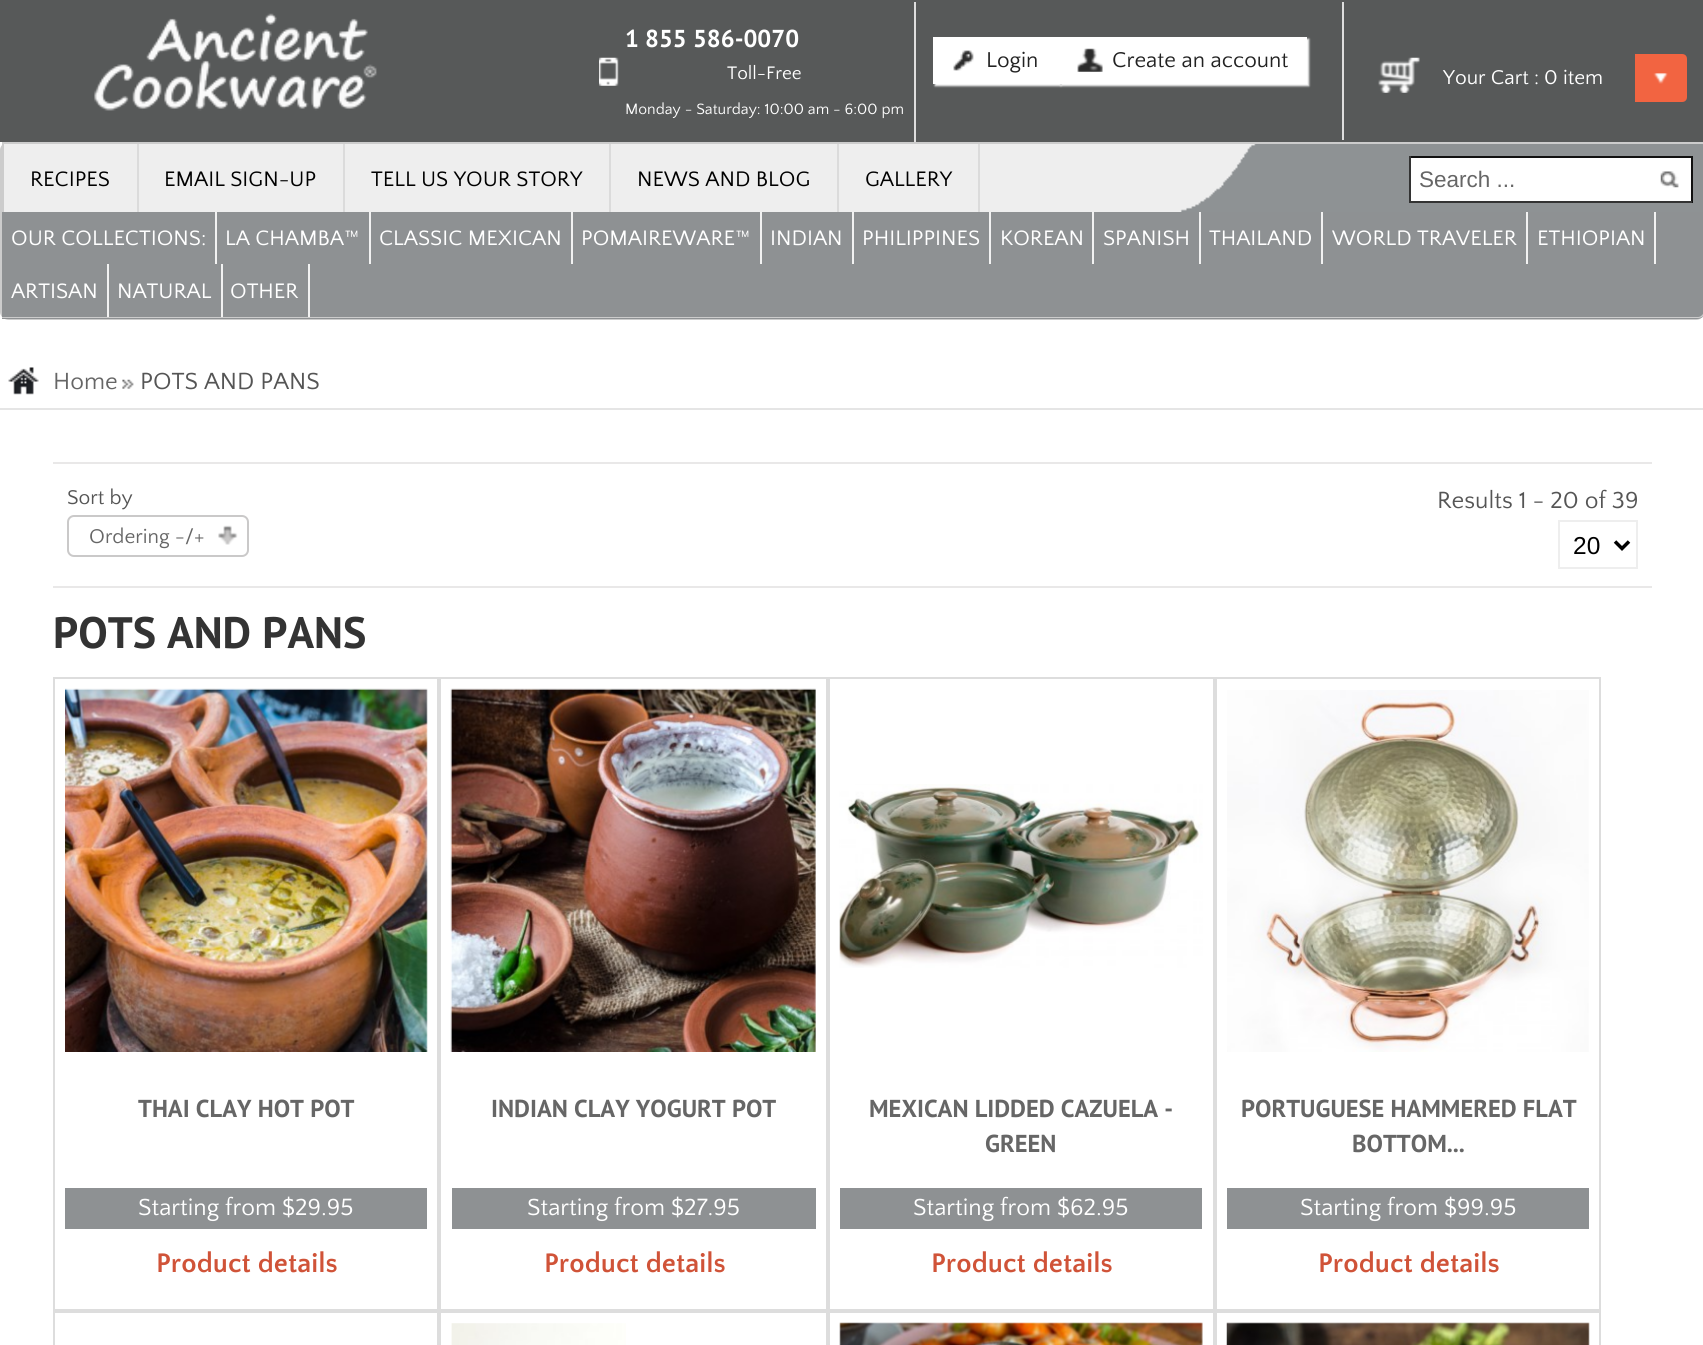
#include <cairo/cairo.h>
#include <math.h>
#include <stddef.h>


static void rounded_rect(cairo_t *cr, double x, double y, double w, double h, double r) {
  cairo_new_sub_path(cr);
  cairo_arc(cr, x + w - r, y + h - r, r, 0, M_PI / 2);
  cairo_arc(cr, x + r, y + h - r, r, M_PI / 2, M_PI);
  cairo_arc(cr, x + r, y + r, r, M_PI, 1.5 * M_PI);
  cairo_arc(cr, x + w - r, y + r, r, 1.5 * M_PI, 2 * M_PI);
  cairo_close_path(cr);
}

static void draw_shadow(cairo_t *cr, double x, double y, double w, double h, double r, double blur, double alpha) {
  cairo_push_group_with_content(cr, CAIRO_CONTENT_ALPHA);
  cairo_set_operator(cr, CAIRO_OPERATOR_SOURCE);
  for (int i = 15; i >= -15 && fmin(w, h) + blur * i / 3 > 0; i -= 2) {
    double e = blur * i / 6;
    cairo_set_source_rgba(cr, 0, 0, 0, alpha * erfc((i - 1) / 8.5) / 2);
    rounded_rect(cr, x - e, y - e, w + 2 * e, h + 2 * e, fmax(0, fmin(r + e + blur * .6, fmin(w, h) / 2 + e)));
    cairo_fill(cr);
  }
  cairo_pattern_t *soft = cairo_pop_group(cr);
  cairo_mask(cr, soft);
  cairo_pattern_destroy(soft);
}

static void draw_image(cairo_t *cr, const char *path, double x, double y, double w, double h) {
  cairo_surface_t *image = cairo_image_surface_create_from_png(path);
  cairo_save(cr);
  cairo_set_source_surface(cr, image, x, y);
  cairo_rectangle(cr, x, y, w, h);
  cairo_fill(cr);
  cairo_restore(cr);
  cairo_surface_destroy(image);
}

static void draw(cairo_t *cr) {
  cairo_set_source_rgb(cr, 1, 1, 1);
  cairo_paint(cr);
  cairo_set_source_rgb(cr, 87 / 255.0, 89 / 255.0, 89 / 255.0);
  cairo_rectangle(cr, 0, 0, 1703, 142);
  cairo_fill(cr);
  draw_image(cr, "images/1.png", 94, 13, 283, 98);
  draw_image(cr, "images/2.png", 599, 57, 20, 29);
  cairo_set_source_rgb(cr, 222 / 255.0, 222 / 255.0, 222 / 255.0);
  cairo_rectangle(cr, 914, 2, 2, 140);
  cairo_fill(cr);
  cairo_rectangle(cr, 1342, 2, 2, 138);
  cairo_fill(cr);
  cairo_set_source_rgb(cr, 1, 1, 1);
  draw_shadow(cr, 935, 39, 126, 47, 0, 1, 1);
  cairo_set_source_rgb(cr, 1, 1, 1);
  cairo_rectangle(cr, 933, 37, 126, 47);
  cairo_fill(cr);
  draw_image(cr, "images/3.png", 953, 50, 21, 21);
  cairo_set_source_rgb(cr, 1, 1, 1);
  draw_shadow(cr, 1061, 39, 248, 47, 0, 1, 1);
  cairo_set_source_rgb(cr, 1, 1, 1);
  cairo_rectangle(cr, 1059, 37, 248, 47);
  cairo_fill(cr);
  draw_image(cr, "images/4.png", 1077, 48, 26, 24);
  draw_image(cr, "images/5.png", 1378, 57, 42, 36);
  cairo_set_source_rgb(cr, 242 / 255.0, 100 / 255.0, 65 / 255.0);
  cairo_new_path(cr);
  cairo_move_to(cr, 1635, 54);
  cairo_line_to(cr, 1682, 54);
  cairo_curve_to(cr, 1685, 54, 1687, 56, 1687, 59);
  cairo_line_to(cr, 1687, 97);
  cairo_curve_to(cr, 1687, 100, 1685, 102, 1682, 102);
  cairo_line_to(cr, 1635, 102);
  cairo_close_path(cr);
  cairo_fill(cr);
  draw_image(cr, "images/6.png", 1653, 73, 15, 11);
  cairo_set_source_rgb(cr, 204 / 255.0, 204 / 255.0, 204 / 255.0);
  cairo_set_fill_rule(cr, CAIRO_FILL_RULE_EVEN_ODD);
  cairo_new_path(cr);
  cairo_move_to(cr, 9, 142);
  cairo_line_to(cr, 1696, 142);
  cairo_curve_to(cr, 1701, 142, 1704, 146, 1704, 150);
  cairo_line_to(cr, 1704, 312);
  cairo_curve_to(cr, 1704, 316, 1701, 320, 1696, 320);
  cairo_line_to(cr, 9, 320);
  cairo_curve_to(cr, 4, 320, 0, 316, 0, 312);
  cairo_line_to(cr, 0, 150);
  cairo_curve_to(cr, 0, 146, 4, 142, 9, 142);
  cairo_close_path(cr);
  cairo_move_to(cr, 9, 142);
  cairo_line_to(cr, 1696, 142);
  cairo_curve_to(cr, 1700, 142, 1703, 146, 1703, 150);
  cairo_line_to(cr, 1703, 312);
  cairo_curve_to(cr, 1703, 315, 1700, 318, 1696, 318);
  cairo_line_to(cr, 9, 318);
  cairo_curve_to(cr, 5, 318, 2, 315, 2, 312);
  cairo_line_to(cr, 2, 150);
  cairo_curve_to(cr, 2, 146, 5, 142, 9, 142);
  cairo_close_path(cr);
  cairo_fill(cr);
  cairo_set_source_rgb(cr, 238 / 255.0, 238 / 255.0, 238 / 255.0);
  cairo_rectangle(cr, 4, 144, 1252, 68);
  cairo_fill(cr);
  draw_image(cr, "images/7.png", 1180, 144, 523, 68);
  cairo_set_source_rgb(cr, 204 / 255.0, 204 / 255.0, 204 / 255.0);
  cairo_rectangle(cr, 2, 142, 1701, 2);
  cairo_fill(cr);
  cairo_rectangle(cr, 2, 142, 2, 70);
  cairo_fill(cr);
  cairo_set_source_rgb(cr, 219 / 255.0, 219 / 255.0, 219 / 255.0);
  cairo_rectangle(cr, 137, 144, 2, 70);
  cairo_fill(cr);
  cairo_rectangle(cr, 343, 144, 2, 70);
  cairo_fill(cr);
  cairo_rectangle(cr, 609, 144, 2, 70);
  cairo_fill(cr);
  cairo_rectangle(cr, 837, 144, 2, 70);
  cairo_fill(cr);
  cairo_rectangle(cr, 978, 144, 2, 70);
  cairo_fill(cr);
  cairo_set_source_rgb(cr, 1, 1, 1);
  cairo_rectangle(cr, 1411, 158, 280, 43);
  cairo_fill(cr);
  draw_image(cr, "images/8.png", 1660, 171, 19, 17);
  cairo_set_source_rgb(cr, 17 / 255.0, 17 / 255.0, 17 / 255.0);
  cairo_rectangle(cr, 1409, 156, 283, 2);
  cairo_fill(cr);
  cairo_rectangle(cr, 1691, 156, 2, 47);
  cairo_fill(cr);
  cairo_set_source_rgb(cr, 51 / 255.0, 51 / 255.0, 51 / 255.0);
  cairo_rectangle(cr, 1409, 201, 283, 2);
  cairo_fill(cr);
  cairo_rectangle(cr, 1409, 156, 2, 47);
  cairo_fill(cr);
  cairo_set_source_rgb(cr, 142 / 255.0, 145 / 255.0, 147 / 255.0);
  cairo_new_path(cr);
  cairo_move_to(cr, 2, 212);
  cairo_line_to(cr, 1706, 212);
  cairo_line_to(cr, 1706, 310);
  cairo_curve_to(cr, 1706, 315, 1702, 319, 1697, 319);
  cairo_line_to(cr, 2, 319);
  cairo_close_path(cr);
  cairo_fill(cr);
  cairo_set_source_rgb(cr, 204 / 255.0, 204 / 255.0, 204 / 255.0);
  cairo_new_path(cr);
  cairo_move_to(cr, 2, 212);
  cairo_line_to(cr, 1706, 212);
  cairo_line_to(cr, 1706, 310);
  cairo_curve_to(cr, 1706, 315, 1702, 318, 1698, 318);
  cairo_line_to(cr, 2, 318);
  cairo_close_path(cr);
  cairo_move_to(cr, 2, 212);
  cairo_line_to(cr, 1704, 212);
  cairo_line_to(cr, 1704, 310);
  cairo_curve_to(cr, 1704, 314, 1701, 317, 1698, 317);
  cairo_line_to(cr, 2, 317);
  cairo_close_path(cr);
  cairo_fill(cr);
  cairo_set_source_rgb(cr, 242 / 255.0, 242 / 255.0, 242 / 255.0);
  cairo_rectangle(cr, 215, 212, 2, 52);
  cairo_fill(cr);
  cairo_rectangle(cr, 369, 212, 2, 52);
  cairo_fill(cr);
  cairo_rectangle(cr, 571, 212, 2, 52);
  cairo_fill(cr);
  cairo_rectangle(cr, 760, 212, 2, 52);
  cairo_fill(cr);
  cairo_rectangle(cr, 852, 212, 2, 52);
  cairo_fill(cr);
  cairo_rectangle(cr, 989, 212, 2, 52);
  cairo_fill(cr);
  cairo_rectangle(cr, 1092, 212, 2, 52);
  cairo_fill(cr);
  cairo_rectangle(cr, 1199, 212, 2, 52);
  cairo_fill(cr);
  cairo_rectangle(cr, 1321, 212, 2, 52);
  cairo_fill(cr);
  cairo_rectangle(cr, 1526, 212, 2, 52);
  cairo_fill(cr);
  cairo_rectangle(cr, 1654, 212, 2, 52);
  cairo_fill(cr);
  cairo_rectangle(cr, 107, 264, 2, 53);
  cairo_fill(cr);
  cairo_rectangle(cr, 221, 264, 2, 53);
  cairo_fill(cr);
  cairo_rectangle(cr, 308, 264, 2, 53);
  cairo_fill(cr);
  cairo_set_source_rgb(cr, 229 / 255.0, 229 / 255.0, 229 / 255.0);
  cairo_rectangle(cr, 0, 408, 1703, 2);
  cairo_fill(cr);
  draw_image(cr, "images/9.png", 8, 367, 31, 28);
  draw_image(cr, "images/10.png", 122, 379, 12, 10);
  cairo_set_source_rgb(cr, 233 / 255.0, 232 / 255.0, 232 / 255.0);
  cairo_rectangle(cr, 53, 462, 1599, 2);
  cairo_fill(cr);
  cairo_rectangle(cr, 53, 586, 1599, 2);
  cairo_fill(cr);
  draw_image(cr, "images/11.png", 218, 525, 20, 20);
  rounded_rect(cr, 68, 516, 180, 40, 6);
  cairo_set_source_rgb(cr, 202 / 255.0, 201 / 255.0, 201 / 255.0);
  cairo_stroke(cr);
  cairo_rectangle(cr, 1559, 521, 78, 47);
  cairo_set_source_rgb(cr, 238 / 255.0, 238 / 255.0, 238 / 255.0);
  cairo_stroke(cr);
  cairo_new_path(cr);
  cairo_move_to(cr, 1615, 541.5);
  cairo_line_to(cr, 1622, 548.5);
  cairo_line_to(cr, 1629, 541.5);
  cairo_set_source_rgb(cr, 0, 0, 0);
  cairo_set_line_width(cr, 3.5);
  cairo_stroke(cr);
  cairo_rectangle(cr, 54, 678, 384, 632);
  cairo_set_source_rgb(cr, 221 / 255.0, 221 / 255.0, 221 / 255.0);
  cairo_set_line_width(cr, 2);
  cairo_stroke(cr);
  draw_image(cr, "images/12.png", 65, 688, 363, 364);
  cairo_set_source_rgb(cr, 142 / 255.0, 145 / 255.0, 147 / 255.0);
  cairo_rectangle(cr, 65, 1188, 362, 41);
  cairo_fill(cr);
  cairo_rectangle(cr, 440, 678, 387, 632);
  cairo_set_source_rgb(cr, 221 / 255.0, 221 / 255.0, 221 / 255.0);
  cairo_stroke(cr);
  draw_image(cr, "images/13.png", 450, 688, 366, 364);
  cairo_set_source_rgb(cr, 142 / 255.0, 145 / 255.0, 147 / 255.0);
  cairo_rectangle(cr, 452, 1188, 364, 41);
  cairo_fill(cr);
  cairo_rectangle(cr, 829, 678, 385, 632);
  cairo_set_source_rgb(cr, 221 / 255.0, 221 / 255.0, 221 / 255.0);
  cairo_stroke(cr);
  draw_image(cr, "images/14.png", 839, 784, 364, 184);
  cairo_set_source_rgb(cr, 142 / 255.0, 145 / 255.0, 147 / 255.0);
  cairo_rectangle(cr, 840, 1188, 362, 41);
  cairo_fill(cr);
  cairo_rectangle(cr, 1216, 678, 384, 632);
  cairo_set_source_rgb(cr, 221 / 255.0, 221 / 255.0, 221 / 255.0);
  cairo_stroke(cr);
  draw_image(cr, "images/15.png", 1227, 690, 362, 362);
  cairo_set_source_rgb(cr, 142 / 255.0, 145 / 255.0, 147 / 255.0);
  cairo_rectangle(cr, 1227, 1188, 362, 41);
  cairo_fill(cr);
  cairo_rectangle(cr, 54, 1312, 384, 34);
  cairo_set_source_rgb(cr, 221 / 255.0, 221 / 255.0, 221 / 255.0);
  cairo_stroke(cr);
  cairo_rectangle(cr, 440, 1312, 387, 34);
  cairo_stroke(cr);
  draw_image(cr, "images/16.png", 451, 1323, 175, 22);
  cairo_rectangle(cr, 829, 1312, 385, 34);
  cairo_stroke(cr);
  draw_image(cr, "images/17.png", 839, 1322, 364, 23);
  cairo_rectangle(cr, 1216, 1312, 384, 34);
  cairo_stroke(cr);
  draw_image(cr, "images/18.png", 1226, 1322, 364, 23);
  cairo_select_font_face(cr, "PT Sans", CAIRO_FONT_SLANT_NORMAL, CAIRO_FONT_WEIGHT_BOLD);
  cairo_set_font_size(cr, 24.5);
  cairo_set_source_rgb(cr, 1, 1, 1);
  cairo_move_to(cr, 625, 47);
  cairo_show_text(cr, "1 855 586-0070");
  cairo_select_font_face(cr, "Quattrocento Sans", CAIRO_FONT_SLANT_NORMAL, CAIRO_FONT_WEIGHT_NORMAL);
  cairo_set_font_size(cr, 19);
  cairo_move_to(cr, 727, 79);
  cairo_show_text(cr, "Toll-Free");
  cairo_set_font_size(cr, 15.75);
  cairo_move_to(cr, 625, 114);
  cairo_show_text(cr, "Monday - Saturday: 10:00 am - 6:00 pm");
  cairo_set_font_size(cr, 22.5);
  cairo_set_source_rgb(cr, 34 / 255.0, 34 / 255.0, 34 / 255.0);
  cairo_move_to(cr, 986, 67);
  cairo_show_text(cr, "Login");
  cairo_move_to(cr, 1112, 67);
  cairo_show_text(cr, "Create an account");
  cairo_set_font_size(cr, 21);
  cairo_set_source_rgb(cr, 1, 1, 1);
  cairo_move_to(cr, 1443, 84);
  cairo_show_text(cr, "Your Cart : 0 item");
  cairo_set_font_size(cr, 22);
  cairo_set_source_rgb(cr, 0, 0, 0);
  cairo_move_to(cr, 30, 186);
  cairo_show_text(cr, "RECIPES");
  cairo_move_to(cr, 164, 186);
  cairo_show_text(cr, "EMAIL SIGN-UP");
  cairo_move_to(cr, 371, 186);
  cairo_show_text(cr, "TELL US YOUR STORY");
  cairo_move_to(cr, 637, 186);
  cairo_show_text(cr, "NEWS AND BLOG");
  cairo_move_to(cr, 865, 186);
  cairo_show_text(cr, "GALLERY");
  cairo_select_font_face(cr, "Liberation Sans", CAIRO_FONT_SLANT_NORMAL, CAIRO_FONT_WEIGHT_NORMAL);
  cairo_set_font_size(cr, 22.5);
  cairo_set_source_rgb(cr, 102 / 255.0, 102 / 255.0, 102 / 255.0);
  cairo_move_to(cr, 1419, 187);
  cairo_show_text(cr, "Search ...");
  cairo_select_font_face(cr, "Quattrocento Sans", CAIRO_FONT_SLANT_NORMAL, CAIRO_FONT_WEIGHT_NORMAL);
  cairo_set_font_size(cr, 22);
  cairo_set_source_rgb(cr, 1, 1, 1);
  cairo_move_to(cr, 11, 245);
  cairo_show_text(cr, "OUR COLLECTIONS:");
  cairo_move_to(cr, 225, 245);
  cairo_show_text(cr, "LA CHAMBA™");
  cairo_move_to(cr, 379, 245);
  cairo_show_text(cr, "CLASSIC MEXICAN");
  cairo_move_to(cr, 581, 245);
  cairo_show_text(cr, "POMAIREWARE™");
  cairo_move_to(cr, 770, 245);
  cairo_show_text(cr, "INDIAN");
  cairo_move_to(cr, 862, 245);
  cairo_show_text(cr, "PHILIPPINES");
  cairo_move_to(cr, 1000, 245);
  cairo_show_text(cr, "KOREAN");
  cairo_move_to(cr, 1103, 245);
  cairo_show_text(cr, "SPANISH");
  cairo_move_to(cr, 1209, 245);
  cairo_show_text(cr, "THAILAND");
  cairo_move_to(cr, 1332, 245);
  cairo_show_text(cr, "WORLD TRAVELER");
  cairo_move_to(cr, 1537, 245);
  cairo_show_text(cr, "ETHIOPIAN");
  cairo_move_to(cr, 11, 298);
  cairo_show_text(cr, "ARTISAN");
  cairo_move_to(cr, 117, 298);
  cairo_show_text(cr, "NATURAL");
  cairo_move_to(cr, 230, 298);
  cairo_show_text(cr, "OTHER");
  cairo_set_font_size(cr, 24.5);
  cairo_set_source_rgb(cr, 102 / 255.0, 102 / 255.0, 102 / 255.0);
  cairo_move_to(cr, 53, 389);
  cairo_show_text(cr, "Home");
  cairo_set_source_rgb(cr, 85 / 255.0, 85 / 255.0, 85 / 255.0);
  cairo_move_to(cr, 140, 389);
  cairo_show_text(cr, "POTS AND PANS");
  cairo_set_font_size(cr, 21);
  cairo_move_to(cr, 67, 504);
  cairo_show_text(cr, "Sort by");
  cairo_set_source_rgb(cr, 102 / 255.0, 102 / 255.0, 102 / 255.0);
  cairo_move_to(cr, 89, 543);
  cairo_show_text(cr, "Ordering -/+");
  cairo_set_font_size(cr, 24.5);
  cairo_set_source_rgb(cr, 85 / 255.0, 85 / 255.0, 85 / 255.0);
  cairo_move_to(cr, 1437, 508);
  cairo_show_text(cr, "Results 1 - 20 of 39");
  cairo_select_font_face(cr, "Liberation Sans", CAIRO_FONT_SLANT_NORMAL, CAIRO_FONT_WEIGHT_NORMAL);
  cairo_set_source_rgb(cr, 0, 0, 0);
  cairo_move_to(cr, 1573, 554);
  cairo_show_text(cr, "20");
  cairo_select_font_face(cr, "PT Sans", CAIRO_FONT_SLANT_NORMAL, CAIRO_FONT_WEIGHT_BOLD);
  cairo_set_font_size(cr, 44);
  cairo_set_source_rgb(cr, 51 / 255.0, 51 / 255.0, 51 / 255.0);
  cairo_move_to(cr, 53, 648);
  cairo_show_text(cr, "POTS AND PANS");
  cairo_set_font_size(cr, 24.5);
  cairo_set_source_rgb(cr, 102 / 255.0, 102 / 255.0, 102 / 255.0);
  cairo_move_to(cr, 138, 1117);
  cairo_show_text(cr, "THAI CLAY HOT POT");
  cairo_select_font_face(cr, "Quattrocento Sans", CAIRO_FONT_SLANT_NORMAL, CAIRO_FONT_WEIGHT_NORMAL);
  cairo_set_source_rgb(cr, 1, 1, 1);
  cairo_move_to(cr, 138, 1215);
  cairo_show_text(cr, "Starting from $29.95");
  cairo_select_font_face(cr, "Quattrocento Sans", CAIRO_FONT_SLANT_NORMAL, CAIRO_FONT_WEIGHT_BOLD);
  cairo_set_font_size(cr, 28);
  cairo_set_source_rgb(cr, 208 / 255.0, 83 / 255.0, 56 / 255.0);
  cairo_move_to(cr, 156, 1272);
  cairo_show_text(cr, "Product details");
  cairo_select_font_face(cr, "PT Sans", CAIRO_FONT_SLANT_NORMAL, CAIRO_FONT_WEIGHT_BOLD);
  cairo_set_font_size(cr, 24.5);
  cairo_set_source_rgb(cr, 102 / 255.0, 102 / 255.0, 102 / 255.0);
  cairo_move_to(cr, 491, 1117);
  cairo_show_text(cr, "INDIAN CLAY YOGURT POT");
  cairo_select_font_face(cr, "Quattrocento Sans", CAIRO_FONT_SLANT_NORMAL, CAIRO_FONT_WEIGHT_NORMAL);
  cairo_set_source_rgb(cr, 1, 1, 1);
  cairo_move_to(cr, 527, 1215);
  cairo_show_text(cr, "Starting from $27.95");
  cairo_select_font_face(cr, "Quattrocento Sans", CAIRO_FONT_SLANT_NORMAL, CAIRO_FONT_WEIGHT_BOLD);
  cairo_set_font_size(cr, 28);
  cairo_set_source_rgb(cr, 208 / 255.0, 83 / 255.0, 56 / 255.0);
  cairo_move_to(cr, 544, 1272);
  cairo_show_text(cr, "Product details");
  cairo_select_font_face(cr, "PT Sans", CAIRO_FONT_SLANT_NORMAL, CAIRO_FONT_WEIGHT_BOLD);
  cairo_set_font_size(cr, 24.5);
  cairo_set_source_rgb(cr, 102 / 255.0, 102 / 255.0, 102 / 255.0);
  cairo_move_to(cr, 869, 1117);
  cairo_show_text(cr, "MEXICAN LIDDED CAZUELA -");
  cairo_move_to(cr, 985, 1152);
  cairo_show_text(cr, "GREEN");
  cairo_select_font_face(cr, "Quattrocento Sans", CAIRO_FONT_SLANT_NORMAL, CAIRO_FONT_WEIGHT_NORMAL);
  cairo_set_source_rgb(cr, 1, 1, 1);
  cairo_move_to(cr, 913, 1215);
  cairo_show_text(cr, "Starting from $62.95");
  cairo_select_font_face(cr, "Quattrocento Sans", CAIRO_FONT_SLANT_NORMAL, CAIRO_FONT_WEIGHT_BOLD);
  cairo_set_font_size(cr, 28);
  cairo_set_source_rgb(cr, 208 / 255.0, 83 / 255.0, 56 / 255.0);
  cairo_move_to(cr, 931, 1272);
  cairo_show_text(cr, "Product details");
  cairo_select_font_face(cr, "PT Sans", CAIRO_FONT_SLANT_NORMAL, CAIRO_FONT_WEIGHT_BOLD);
  cairo_set_font_size(cr, 24.5);
  cairo_set_source_rgb(cr, 102 / 255.0, 102 / 255.0, 102 / 255.0);
  cairo_move_to(cr, 1241, 1117);
  cairo_show_text(cr, "PORTUGUESE HAMMERED FLAT");
  cairo_move_to(cr, 1352, 1152);
  cairo_show_text(cr, "BOTTOM...");
  cairo_select_font_face(cr, "Quattrocento Sans", CAIRO_FONT_SLANT_NORMAL, CAIRO_FONT_WEIGHT_NORMAL);
  cairo_set_source_rgb(cr, 1, 1, 1);
  cairo_move_to(cr, 1300, 1215);
  cairo_show_text(cr, "Starting from $99.95");
  cairo_select_font_face(cr, "Quattrocento Sans", CAIRO_FONT_SLANT_NORMAL, CAIRO_FONT_WEIGHT_BOLD);
  cairo_set_font_size(cr, 28);
  cairo_set_source_rgb(cr, 208 / 255.0, 83 / 255.0, 56 / 255.0);
  cairo_move_to(cr, 1318, 1272);
  cairo_show_text(cr, "Product details");
}

int main(void) {
  cairo_surface_t *surface = cairo_image_surface_create(CAIRO_FORMAT_RGB24, 1703, 1345);
  cairo_t *cr = cairo_create(surface);
  cairo_font_options_t *options = cairo_font_options_create();
  cairo_font_options_set_hint_metrics(options, CAIRO_HINT_METRICS_OFF);
  cairo_font_options_set_hint_style(options, CAIRO_HINT_STYLE_NONE);
  cairo_set_font_options(cr, options);
  cairo_set_miter_limit(cr, 4);
  draw(cr);
  cairo_surface_write_to_png(surface, "out.png");
  cairo_font_options_destroy(options);
  cairo_destroy(cr);
  cairo_surface_destroy(surface);
  return 0;
}
